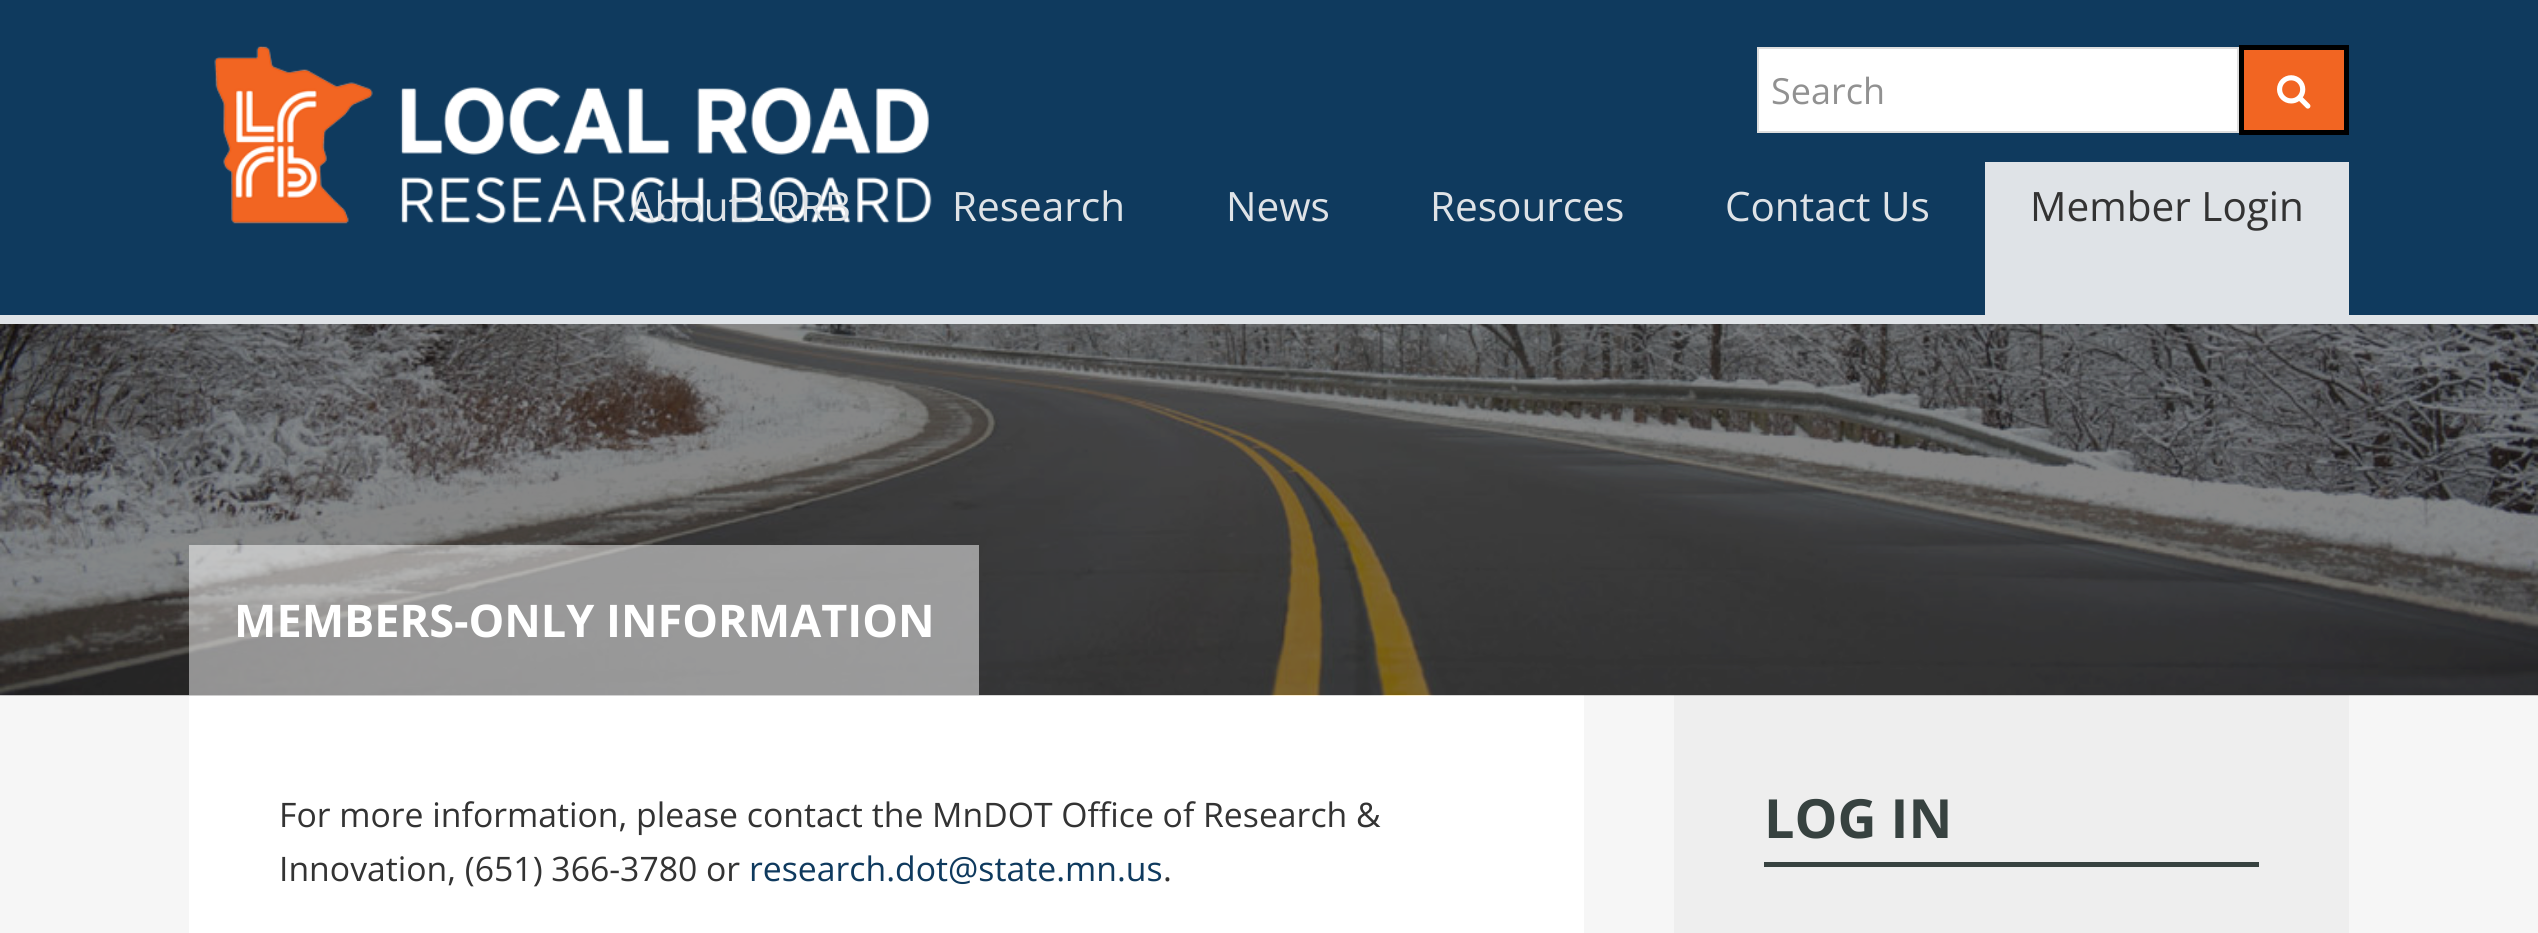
#include <cairo/cairo.h>
#include <math.h>
#include <stddef.h>


static void draw_image(cairo_t *cr, const char *path, double x, double y, double w, double h) {
  cairo_surface_t *image = cairo_image_surface_create_from_png(path);
  cairo_save(cr);
  cairo_set_source_surface(cr, image, x, y);
  cairo_rectangle(cr, x, y, w, h);
  cairo_fill(cr);
  cairo_restore(cr);
  cairo_surface_destroy(image);
}

static void draw(cairo_t *cr) {
  cairo_set_source_rgb(cr, 246 / 255.0, 246 / 255.0, 246 / 255.0);
  cairo_paint(cr);
  cairo_set_source_rgb(cr, 15 / 255.0, 58 / 255.0, 94 / 255.0);
  cairo_rectangle(cr, 0, 0, 2538, 315);
  cairo_fill(cr);
  cairo_set_source_rgb(cr, 223 / 255.0, 227 / 255.0, 231 / 255.0);
  cairo_rectangle(cr, 0, 315, 2538, 9);
  cairo_fill(cr);
  draw_image(cr, "images/1.png", 214, 46, 718, 178);
  cairo_set_source_rgb(cr, 1, 1, 1);
  cairo_rectangle(cr, 1758, 48, 480, 84);
  cairo_fill_preserve(cr);
  cairo_set_source_rgb(cr, 221 / 255.0, 221 / 255.0, 221 / 255.0);
  cairo_stroke(cr);
  cairo_set_source_rgb(cr, 242 / 255.0, 101 / 255.0, 34 / 255.0);
  cairo_rectangle(cr, 2241.5, 47.5, 105, 85);
  cairo_fill_preserve(cr);
  cairo_set_source_rgb(cr, 0, 0, 0);
  cairo_set_line_width(cr, 5);
  cairo_stroke(cr);
  draw_image(cr, "images/2.png", 2277, 75, 34, 34);
  cairo_set_source_rgb(cr, 223 / 255.0, 227 / 255.0, 231 / 255.0);
  cairo_rectangle(cr, 1985, 162, 364, 153);
  cairo_fill(cr);
  cairo_set_source_rgb(cr, 1, 1, 1);
  cairo_rectangle(cr, 189, 695, 1395, 238);
  cairo_fill(cr);
  cairo_set_source_rgb(cr, 238 / 255.0, 238 / 255.0, 238 / 255.0);
  cairo_rectangle(cr, 1674, 695, 675, 238);
  cairo_fill(cr);
  draw_image(cr, "images/3.png", 0, 324, 2538, 372);
  cairo_set_source_rgba(cr, 1, 1, 1, 0.5);
  cairo_rectangle(cr, 189, 545, 790, 150);
  cairo_fill(cr);
  cairo_set_source_rgb(cr, 55 / 255.0, 66 / 255.0, 64 / 255.0);
  cairo_rectangle(cr, 1764, 862, 495, 5);
  cairo_fill(cr);
  cairo_select_font_face(cr, "Open Sans", CAIRO_FONT_SLANT_NORMAL, CAIRO_FONT_WEIGHT_NORMAL);
  cairo_set_font_size(cr, 36);
  cairo_set_source_rgb(cr, 145 / 255.0, 145 / 255.0, 145 / 255.0);
  cairo_move_to(cr, 1771, 104);
  cairo_show_text(cr, "Search");
  cairo_set_font_size(cr, 40.5);
  cairo_set_source_rgb(cr, 223 / 255.0, 227 / 255.0, 231 / 255.0);
  cairo_move_to(cr, 629, 221);
  cairo_show_text(cr, "About LRRB");
  cairo_move_to(cr, 952, 221);
  cairo_show_text(cr, "Research");
  cairo_move_to(cr, 1226, 221);
  cairo_show_text(cr, "News");
  cairo_move_to(cr, 1430, 221);
  cairo_show_text(cr, "Resources");
  cairo_move_to(cr, 1725, 221);
  cairo_show_text(cr, "Contact Us");
  cairo_set_source_rgb(cr, 51 / 255.0, 51 / 255.0, 51 / 255.0);
  cairo_move_to(cr, 2030, 221);
  cairo_show_text(cr, "Member Login");
  cairo_select_font_face(cr, "Open Sans", CAIRO_FONT_SLANT_NORMAL, CAIRO_FONT_WEIGHT_BOLD);
  cairo_set_font_size(cr, 45);
  cairo_set_source_rgb(cr, 1, 1, 1);
  cairo_move_to(cr, 234, 637);
  cairo_show_text(cr, "MEMBERS-ONLY INFORMATION");
  cairo_select_font_face(cr, "Open Sans", CAIRO_FONT_SLANT_NORMAL, CAIRO_FONT_WEIGHT_NORMAL);
  cairo_set_font_size(cr, 33.75);
  cairo_set_source_rgb(cr, 51 / 255.0, 51 / 255.0, 51 / 255.0);
  cairo_move_to(cr, 279, 827);
  cairo_show_text(cr, "For more information, please contact the MnDOT Office of Research &");
  cairo_move_to(cr, 279, 881);
  cairo_show_text(cr, "Innovation, (651) 366-3780 or");
  cairo_set_source_rgb(cr, 15 / 255.0, 58 / 255.0, 94 / 255.0);
  cairo_move_to(cr, 749, 881);
  cairo_show_text(cr, "research.dot@state.mn.us");
  cairo_set_source_rgb(cr, 51 / 255.0, 51 / 255.0, 51 / 255.0);
  cairo_move_to(cr, 1163, 881);
  cairo_show_text(cr, ".");
  cairo_select_font_face(cr, "Open Sans", CAIRO_FONT_SLANT_NORMAL, CAIRO_FONT_WEIGHT_BOLD);
  cairo_set_font_size(cr, 54);
  cairo_set_source_rgb(cr, 55 / 255.0, 66 / 255.0, 64 / 255.0);
  cairo_move_to(cr, 1764, 838);
  cairo_show_text(cr, "LOG IN");
}

int main(void) {
  cairo_surface_t *surface = cairo_image_surface_create(CAIRO_FORMAT_RGB24, 2538, 933);
  cairo_t *cr = cairo_create(surface);
  cairo_font_options_t *options = cairo_font_options_create();
  cairo_font_options_set_hint_metrics(options, CAIRO_HINT_METRICS_OFF);
  cairo_font_options_set_hint_style(options, CAIRO_HINT_STYLE_NONE);
  cairo_set_font_options(cr, options);
  cairo_set_miter_limit(cr, 4);
  draw(cr);
  cairo_surface_write_to_png(surface, "out.png");
  cairo_font_options_destroy(options);
  cairo_destroy(cr);
  cairo_surface_destroy(surface);
  return 0;
}
